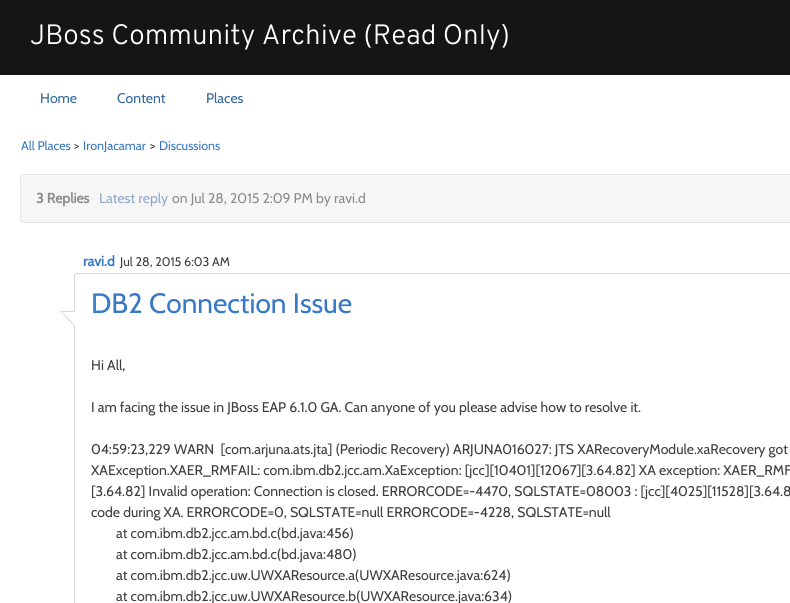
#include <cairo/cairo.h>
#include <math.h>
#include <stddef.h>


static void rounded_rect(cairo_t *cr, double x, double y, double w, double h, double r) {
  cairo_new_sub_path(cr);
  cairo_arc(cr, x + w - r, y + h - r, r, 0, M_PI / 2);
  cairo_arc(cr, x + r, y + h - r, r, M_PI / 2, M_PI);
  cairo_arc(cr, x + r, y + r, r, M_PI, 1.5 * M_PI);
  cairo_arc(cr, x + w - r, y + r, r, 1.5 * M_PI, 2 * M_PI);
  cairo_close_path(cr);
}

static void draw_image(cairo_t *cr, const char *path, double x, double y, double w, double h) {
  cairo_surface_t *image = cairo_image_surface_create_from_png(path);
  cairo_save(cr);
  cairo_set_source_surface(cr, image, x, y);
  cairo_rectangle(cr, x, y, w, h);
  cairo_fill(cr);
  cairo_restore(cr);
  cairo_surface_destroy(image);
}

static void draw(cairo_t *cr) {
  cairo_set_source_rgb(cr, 1, 1, 1);
  cairo_paint(cr);
  cairo_set_source_rgb(cr, 21 / 255.0, 21 / 255.0, 21 / 255.0);
  cairo_rectangle(cr, 0, 0, 790, 75);
  cairo_fill(cr);
  cairo_set_source_rgb(cr, 246 / 255.0, 246 / 255.0, 246 / 255.0);
  rounded_rect(cr, 20.5, 174.5, 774, 48, 3.5);
  cairo_fill_preserve(cr);
  cairo_set_source_rgb(cr, 229 / 255.0, 229 / 255.0, 229 / 255.0);
  cairo_set_line_width(cr, 1);
  cairo_stroke(cr);
  rounded_rect(cr, 74.5, 273.5, 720, 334, 3.5);
  cairo_set_source_rgb(cr, 55 / 255.0, 120 / 255.0, 199 / 255.0);
  cairo_stroke(cr);
  cairo_set_source_rgb(cr, 1, 1, 1);
  cairo_new_path(cr);
  cairo_move_to(cr, 78, 273);
  cairo_line_to(cr, 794, 273);
  cairo_line_to(cr, 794, 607);
  cairo_line_to(cr, 78, 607);
  cairo_curve_to(cr, 76, 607, 74, 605, 74, 603);
  cairo_line_to(cr, 74, 277);
  cairo_curve_to(cr, 74, 275, 76, 273, 78, 273);
  cairo_close_path(cr);
  cairo_fill(cr);
  cairo_set_source_rgb(cr, 218 / 255.0, 218 / 255.0, 218 / 255.0);
  cairo_set_fill_rule(cr, CAIRO_FILL_RULE_EVEN_ODD);
  cairo_new_path(cr);
  cairo_move_to(cr, 78, 273);
  cairo_line_to(cr, 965, 273);
  cairo_line_to(cr, 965, 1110);
  cairo_line_to(cr, 78, 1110);
  cairo_curve_to(cr, 76, 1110, 74, 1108, 74, 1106);
  cairo_line_to(cr, 74, 277);
  cairo_curve_to(cr, 74, 275, 76, 273, 78, 273);
  cairo_close_path(cr);
  cairo_move_to(cr, 78, 274);
  cairo_line_to(cr, 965, 274);
  cairo_line_to(cr, 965, 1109);
  cairo_line_to(cr, 78, 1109);
  cairo_curve_to(cr, 76, 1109, 75, 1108, 75, 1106);
  cairo_line_to(cr, 75, 277);
  cairo_curve_to(cr, 75, 275, 76, 274, 78, 274);
  cairo_close_path(cr);
  cairo_fill(cr);
  draw_image(cr, "images/1.png", 60, 311, 15, 15);
  cairo_select_font_face(cr, "Overpass Light", CAIRO_FONT_SLANT_NORMAL, CAIRO_FONT_WEIGHT_NORMAL);
  cairo_set_font_size(cr, 28);
  cairo_set_source_rgb(cr, 1, 1, 1);
  cairo_move_to(cr, 30, 44);
  cairo_show_text(cr, "JBoss Community Archive (Read Only)");
  cairo_select_font_face(cr, "Cabin", CAIRO_FONT_SLANT_NORMAL, CAIRO_FONT_WEIGHT_NORMAL);
  cairo_set_font_size(cr, 14);
  cairo_set_source_rgb(cr, 51 / 255.0, 102 / 255.0, 153 / 255.0);
  cairo_move_to(cr, 40, 103);
  cairo_show_text(cr, "Home");
  cairo_move_to(cr, 117, 103);
  cairo_show_text(cr, "Content");
  cairo_move_to(cr, 206, 103);
  cairo_show_text(cr, "Places");
  cairo_set_font_size(cr, 12.5);
  cairo_set_source_rgb(cr, 55 / 255.0, 120 / 255.0, 199 / 255.0);
  cairo_move_to(cr, 21, 150);
  cairo_show_text(cr, "All Places");
  cairo_set_source_rgb(cr, 61 / 255.0, 61 / 255.0, 61 / 255.0);
  cairo_move_to(cr, 74, 150);
  cairo_show_text(cr, ">");
  cairo_set_source_rgb(cr, 55 / 255.0, 120 / 255.0, 199 / 255.0);
  cairo_move_to(cr, 83, 150);
  cairo_show_text(cr, "IronJacamar");
  cairo_set_source_rgb(cr, 61 / 255.0, 61 / 255.0, 61 / 255.0);
  cairo_move_to(cr, 150, 150);
  cairo_show_text(cr, ">");
  cairo_set_source_rgb(cr, 55 / 255.0, 120 / 255.0, 199 / 255.0);
  cairo_move_to(cr, 159, 150);
  cairo_show_text(cr, "Discussions");
  cairo_select_font_face(cr, "Cabin", CAIRO_FONT_SLANT_NORMAL, CAIRO_FONT_WEIGHT_BOLD);
  cairo_set_font_size(cr, 14);
  cairo_set_source_rgb(cr, 139 / 255.0, 139 / 255.0, 139 / 255.0);
  cairo_move_to(cr, 36, 203);
  cairo_show_text(cr, "3 Replies");
  cairo_select_font_face(cr, "Cabin", CAIRO_FONT_SLANT_NORMAL, CAIRO_FONT_WEIGHT_NORMAL);
  cairo_set_source_rgb(cr, 140 / 255.0, 169 / 255.0, 205 / 255.0);
  cairo_move_to(cr, 99, 203);
  cairo_show_text(cr, "Latest reply");
  cairo_set_source_rgb(cr, 139 / 255.0, 139 / 255.0, 139 / 255.0);
  cairo_move_to(cr, 172, 203);
  cairo_show_text(cr, "on Jul 28, 2015 2:09 PM by ravi.d");
  cairo_select_font_face(cr, "Cabin", CAIRO_FONT_SLANT_NORMAL, CAIRO_FONT_WEIGHT_BOLD);
  cairo_set_source_rgb(cr, 55 / 255.0, 120 / 255.0, 199 / 255.0);
  cairo_move_to(cr, 83, 266);
  cairo_show_text(cr, "ravi.d");
  cairo_select_font_face(cr, "Cabin", CAIRO_FONT_SLANT_NORMAL, CAIRO_FONT_WEIGHT_NORMAL);
  cairo_set_font_size(cr, 12.5);
  cairo_set_source_rgb(cr, 61 / 255.0, 61 / 255.0, 61 / 255.0);
  cairo_move_to(cr, 120, 266);
  cairo_show_text(cr, "Jul 28, 2015 6:03 AM");
  cairo_set_font_size(cr, 28);
  cairo_set_source_rgb(cr, 55 / 255.0, 120 / 255.0, 199 / 255.0);
  cairo_move_to(cr, 91, 313);
  cairo_show_text(cr, "DB2 Connection Issue");
  cairo_set_font_size(cr, 14);
  cairo_set_source_rgb(cr, 61 / 255.0, 61 / 255.0, 61 / 255.0);
  cairo_move_to(cr, 91, 370);
  cairo_show_text(cr, "Hi All,");
  cairo_move_to(cr, 91, 412);
  cairo_show_text(cr, "I am facing the issue in JBoss EAP 6.1.0 GA. Can anyone of you please advise how to resolve it.");
  cairo_move_to(cr, 91, 454);
  cairo_show_text(cr, "04:59:23,229 WARN  [com.arjuna.ats.jta] (Periodic Recovery) ARJUNA016027: JTS XARecoveryModule.xaRecovery got");
  cairo_move_to(cr, 91, 475);
  cairo_show_text(cr, "XAException.XAER_RMFAIL: com.ibm.db2.jcc.am.XaException: [jcc][10401][12067][3.64.82] XA exception: XAER_RMF");
  cairo_move_to(cr, 91, 496);
  cairo_show_text(cr, "[3.64.82] Invalid operation: Connection is closed. ERRORCODE=-4470, SQLSTATE=08003 : [jcc][4025][11528][3.64.8");
  cairo_move_to(cr, 91, 517);
  cairo_show_text(cr, "code during XA. ERRORCODE=0, SQLSTATE=null ERRORCODE=-4228, SQLSTATE=null");
  cairo_move_to(cr, 116, 538);
  cairo_show_text(cr, "at com.ibm.db2.jcc.am.bd.c(bd.java:456)");
  cairo_move_to(cr, 116, 559);
  cairo_show_text(cr, "at com.ibm.db2.jcc.am.bd.c(bd.java:480)");
  cairo_move_to(cr, 116, 580);
  cairo_show_text(cr, "at com.ibm.db2.jcc.uw.UWXAResource.a(UWXAResource.java:624)");
  cairo_move_to(cr, 116, 601);
  cairo_show_text(cr, "at com.ibm.db2.jcc.uw.UWXAResource.b(UWXAResource.java:634)");
}

int main(void) {
  cairo_surface_t *surface = cairo_image_surface_create(CAIRO_FORMAT_RGB24, 790, 603);
  cairo_t *cr = cairo_create(surface);
  cairo_font_options_t *options = cairo_font_options_create();
  cairo_font_options_set_hint_metrics(options, CAIRO_HINT_METRICS_OFF);
  cairo_font_options_set_hint_style(options, CAIRO_HINT_STYLE_NONE);
  cairo_set_font_options(cr, options);
  cairo_set_miter_limit(cr, 4);
  draw(cr);
  cairo_surface_write_to_png(surface, "out.png");
  cairo_font_options_destroy(options);
  cairo_destroy(cr);
  cairo_surface_destroy(surface);
  return 0;
}
